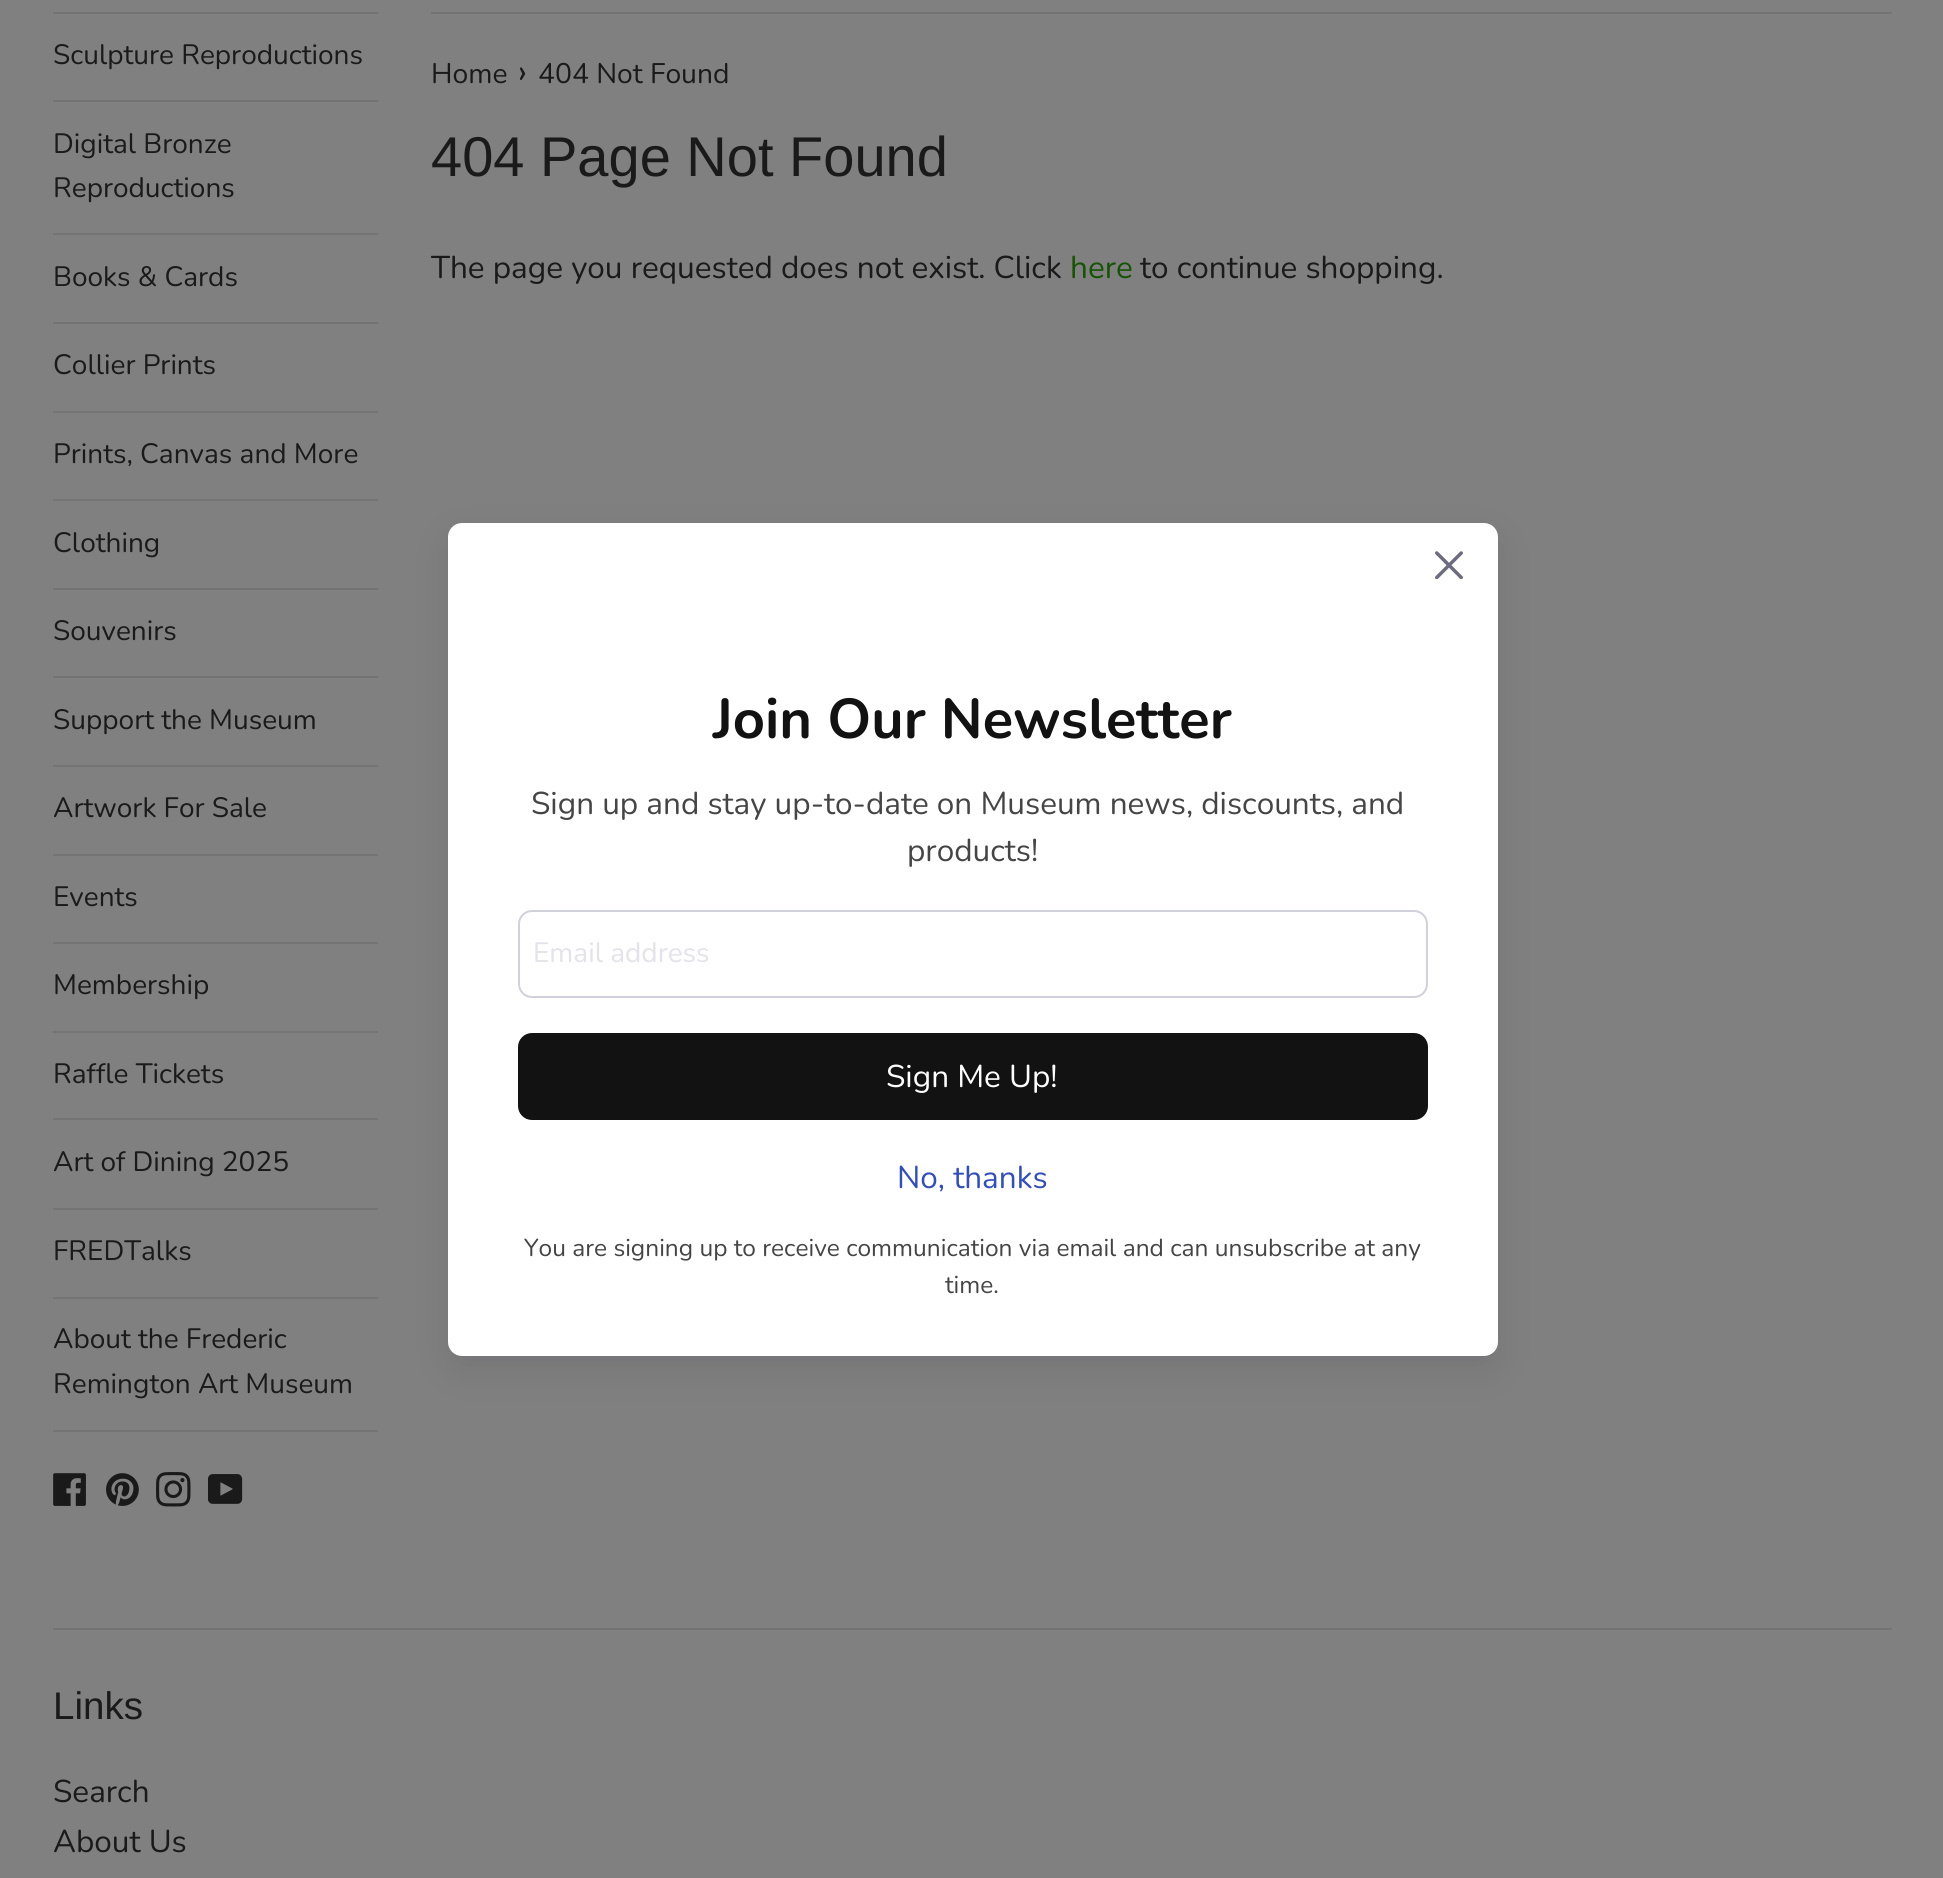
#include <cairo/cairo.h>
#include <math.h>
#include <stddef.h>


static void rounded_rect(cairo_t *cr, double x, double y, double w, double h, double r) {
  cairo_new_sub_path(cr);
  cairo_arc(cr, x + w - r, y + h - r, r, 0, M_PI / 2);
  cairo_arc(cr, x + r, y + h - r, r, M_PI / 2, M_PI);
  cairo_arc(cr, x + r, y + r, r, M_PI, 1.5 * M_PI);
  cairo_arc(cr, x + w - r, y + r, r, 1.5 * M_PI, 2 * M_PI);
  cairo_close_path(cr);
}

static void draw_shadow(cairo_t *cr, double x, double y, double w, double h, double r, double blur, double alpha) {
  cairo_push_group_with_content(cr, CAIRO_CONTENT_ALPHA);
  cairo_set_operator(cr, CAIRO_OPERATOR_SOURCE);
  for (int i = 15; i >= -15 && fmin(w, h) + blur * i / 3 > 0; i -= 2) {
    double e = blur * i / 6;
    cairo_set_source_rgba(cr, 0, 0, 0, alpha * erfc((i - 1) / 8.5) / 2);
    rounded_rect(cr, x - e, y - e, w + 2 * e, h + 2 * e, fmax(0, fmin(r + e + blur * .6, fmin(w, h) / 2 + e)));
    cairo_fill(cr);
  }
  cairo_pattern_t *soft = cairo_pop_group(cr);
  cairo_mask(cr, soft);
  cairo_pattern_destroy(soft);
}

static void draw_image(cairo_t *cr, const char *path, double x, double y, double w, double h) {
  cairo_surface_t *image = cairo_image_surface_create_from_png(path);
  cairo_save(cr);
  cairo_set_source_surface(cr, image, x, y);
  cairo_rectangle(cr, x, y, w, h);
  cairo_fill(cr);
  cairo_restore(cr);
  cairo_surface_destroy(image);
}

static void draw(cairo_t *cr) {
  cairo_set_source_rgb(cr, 128 / 255.0, 128 / 255.0, 128 / 255.0);
  cairo_paint(cr);
  cairo_set_source_rgb(cr, 116 / 255.0, 116 / 255.0, 116 / 255.0);
  cairo_rectangle(cr, 53, 12, 325, 2);
  cairo_fill(cr);
  cairo_rectangle(cr, 53, 100, 325, 2);
  cairo_fill(cr);
  cairo_rectangle(cr, 53, 233, 325, 2);
  cairo_fill(cr);
  cairo_rectangle(cr, 53, 322, 325, 2);
  cairo_fill(cr);
  cairo_rectangle(cr, 53, 411, 325, 2);
  cairo_fill(cr);
  cairo_rectangle(cr, 53, 499, 325, 2);
  cairo_fill(cr);
  cairo_rectangle(cr, 53, 588, 325, 2);
  cairo_fill(cr);
  cairo_rectangle(cr, 53, 676, 325, 2);
  cairo_fill(cr);
  cairo_rectangle(cr, 53, 765, 325, 2);
  cairo_fill(cr);
  cairo_rectangle(cr, 53, 854, 325, 2);
  cairo_fill(cr);
  cairo_rectangle(cr, 53, 942, 325, 2);
  cairo_fill(cr);
  cairo_rectangle(cr, 53, 1031, 325, 2);
  cairo_fill(cr);
  cairo_rectangle(cr, 53, 1118, 325, 2);
  cairo_fill(cr);
  cairo_rectangle(cr, 53, 1208, 325, 2);
  cairo_fill(cr);
  cairo_rectangle(cr, 53, 1297, 325, 2);
  cairo_fill(cr);
  cairo_rectangle(cr, 53, 1430, 325, 2);
  cairo_fill(cr);
  draw_image(cr, "images/1.png", 53, 1473, 33, 33);
  draw_image(cr, "images/2.png", 106, 1473, 33, 33);
  draw_image(cr, "images/3.png", 156, 1472, 35, 35);
  draw_image(cr, "images/4.png", 208, 1474, 35, 30);
  cairo_rectangle(cr, 431, 12, 1461, 2);
  cairo_fill(cr);
  cairo_rectangle(cr, 53, 1628, 1839, 2);
  cairo_fill(cr);
  cairo_set_source_rgb(cr, 18 / 255.0, 17 / 255.0, 39 / 255.0);
  draw_shadow(cr, 448, 537, 1050, 833, 14, 17.5, 0.1);
  cairo_set_source_rgb(cr, 1, 1, 1);
  rounded_rect(cr, 448, 523, 1050, 833, 14);
  cairo_fill(cr);
  draw_image(cr, "images/5.png", 1435, 551, 28, 28);
  rounded_rect(cr, 519, 911, 908, 86, 13);
  cairo_set_source_rgb(cr, 209 / 255.0, 209 / 255.0, 219 / 255.0);
  cairo_stroke(cr);
  cairo_set_source_rgb(cr, 18 / 255.0, 18 / 255.0, 18 / 255.0);
  rounded_rect(cr, 518, 1033, 910, 87, 14);
  cairo_fill(cr);
  cairo_select_font_face(cr, "Nunito", CAIRO_FONT_SLANT_NORMAL, CAIRO_FONT_WEIGHT_NORMAL);
  cairo_set_font_size(cr, 28);
  cairo_set_source_rgb(cr, 26 / 255.0, 26 / 255.0, 26 / 255.0);
  cairo_move_to(cr, 53, 64);
  cairo_show_text(cr, "Sculpture Reproductions");
  cairo_move_to(cr, 53, 153);
  cairo_show_text(cr, "Digital Bronze");
  cairo_move_to(cr, 53, 197);
  cairo_show_text(cr, "Reproductions");
  cairo_move_to(cr, 53, 286);
  cairo_show_text(cr, "Books & Cards");
  cairo_move_to(cr, 53, 374);
  cairo_show_text(cr, "Collier Prints");
  cairo_move_to(cr, 53, 463);
  cairo_show_text(cr, "Prints, Canvas and More");
  cairo_move_to(cr, 53, 552);
  cairo_show_text(cr, "Clothing");
  cairo_move_to(cr, 53, 640);
  cairo_show_text(cr, "Souvenirs");
  cairo_move_to(cr, 53, 729);
  cairo_show_text(cr, "Support the Museum");
  cairo_move_to(cr, 53, 817);
  cairo_show_text(cr, "Artwork For Sale");
  cairo_move_to(cr, 53, 906);
  cairo_show_text(cr, "Events");
  cairo_move_to(cr, 53, 994);
  cairo_show_text(cr, "Membership");
  cairo_move_to(cr, 53, 1083);
  cairo_show_text(cr, "Raffle Tickets");
  cairo_move_to(cr, 53, 1171);
  cairo_show_text(cr, "Art of Dining 2025");
  cairo_move_to(cr, 53, 1260);
  cairo_show_text(cr, "FREDTalks");
  cairo_move_to(cr, 53, 1348);
  cairo_show_text(cr, "About the Frederic");
  cairo_move_to(cr, 53, 1393);
  cairo_show_text(cr, "Remington Art Museum");
  cairo_set_font_size(cr, 28.25);
  cairo_move_to(cr, 431, 83);
  cairo_show_text(cr, "Home");
  cairo_set_font_size(cr, 35);
  cairo_move_to(cr, 518, 83);
  cairo_show_text(cr, "›");
  cairo_set_font_size(cr, 28.25);
  cairo_move_to(cr, 538, 83);
  cairo_show_text(cr, "404 Not Found");
  cairo_select_font_face(cr, "Arimo", CAIRO_FONT_SLANT_NORMAL, CAIRO_FONT_WEIGHT_NORMAL);
  cairo_set_font_size(cr, 56);
  cairo_move_to(cr, 431, 176);
  cairo_show_text(cr, "404 Page Not Found");
  cairo_select_font_face(cr, "Nunito", CAIRO_FONT_SLANT_NORMAL, CAIRO_FONT_WEIGHT_NORMAL);
  cairo_set_font_size(cr, 31.5);
  cairo_move_to(cr, 431, 278);
  cairo_show_text(cr, "The page you requested does not exist. Click");
  cairo_set_source_rgb(cr, 22 / 255.0, 83 / 255.0, 5 / 255.0);
  cairo_move_to(cr, 1070, 278);
  cairo_show_text(cr, "here");
  cairo_set_source_rgb(cr, 26 / 255.0, 26 / 255.0, 26 / 255.0);
  cairo_move_to(cr, 1140, 278);
  cairo_show_text(cr, "to continue shopping.");
  cairo_select_font_face(cr, "Arimo", CAIRO_FONT_SLANT_NORMAL, CAIRO_FONT_WEIGHT_NORMAL);
  cairo_set_font_size(cr, 38.5);
  cairo_move_to(cr, 53, 1719);
  cairo_show_text(cr, "Links");
  cairo_select_font_face(cr, "Nunito", CAIRO_FONT_SLANT_NORMAL, CAIRO_FONT_WEIGHT_NORMAL);
  cairo_set_font_size(cr, 31.5);
  cairo_move_to(cr, 53, 1802);
  cairo_show_text(cr, "Search");
  cairo_move_to(cr, 53, 1852);
  cairo_show_text(cr, "About Us");
  cairo_select_font_face(cr, "Nunito", CAIRO_FONT_SLANT_NORMAL, CAIRO_FONT_WEIGHT_BOLD);
  cairo_set_font_size(cr, 56);
  cairo_set_source_rgb(cr, 18 / 255.0, 18 / 255.0, 18 / 255.0);
  cairo_move_to(cr, 713, 738);
  cairo_show_text(cr, "Join Our Newsletter");
  cairo_select_font_face(cr, "Nunito", CAIRO_FONT_SLANT_NORMAL, CAIRO_FONT_WEIGHT_NORMAL);
  cairo_set_font_size(cr, 31.5);
  cairo_set_source_rgb(cr, 69 / 255.0, 69 / 255.0, 69 / 255.0);
  cairo_move_to(cr, 531, 814);
  cairo_show_text(cr, "Sign up and stay up-to-date on Museum news, discounts, and");
  cairo_move_to(cr, 907, 861);
  cairo_show_text(cr, "products!");
  cairo_set_font_size(cr, 28);
  cairo_set_source_rgb(cr, 227 / 255.0, 227 / 255.0, 233 / 255.0);
  cairo_move_to(cr, 533, 962);
  cairo_show_text(cr, "Email address");
  cairo_set_font_size(cr, 31.5);
  cairo_set_source_rgb(cr, 1, 1, 1);
  cairo_move_to(cr, 886, 1087);
  cairo_show_text(cr, "Sign Me Up!");
  cairo_set_source_rgb(cr, 51 / 255.0, 79 / 255.0, 180 / 255.0);
  cairo_move_to(cr, 897, 1188);
  cairo_show_text(cr, "No, thanks");
  cairo_set_font_size(cr, 24.5);
  cairo_set_source_rgb(cr, 69 / 255.0, 69 / 255.0, 69 / 255.0);
  cairo_move_to(cr, 524, 1256);
  cairo_show_text(cr, "You are signing up to receive communication via email and can unsubscribe at any");
  cairo_move_to(cr, 945, 1293);
  cairo_show_text(cr, "time.");
}

int main(void) {
  cairo_surface_t *surface = cairo_image_surface_create(CAIRO_FORMAT_RGB24, 1943, 1878);
  cairo_t *cr = cairo_create(surface);
  cairo_font_options_t *options = cairo_font_options_create();
  cairo_font_options_set_hint_metrics(options, CAIRO_HINT_METRICS_OFF);
  cairo_font_options_set_hint_style(options, CAIRO_HINT_STYLE_NONE);
  cairo_set_font_options(cr, options);
  cairo_set_miter_limit(cr, 4);
  draw(cr);
  cairo_surface_write_to_png(surface, "out.png");
  cairo_font_options_destroy(options);
  cairo_destroy(cr);
  cairo_surface_destroy(surface);
  return 0;
}
